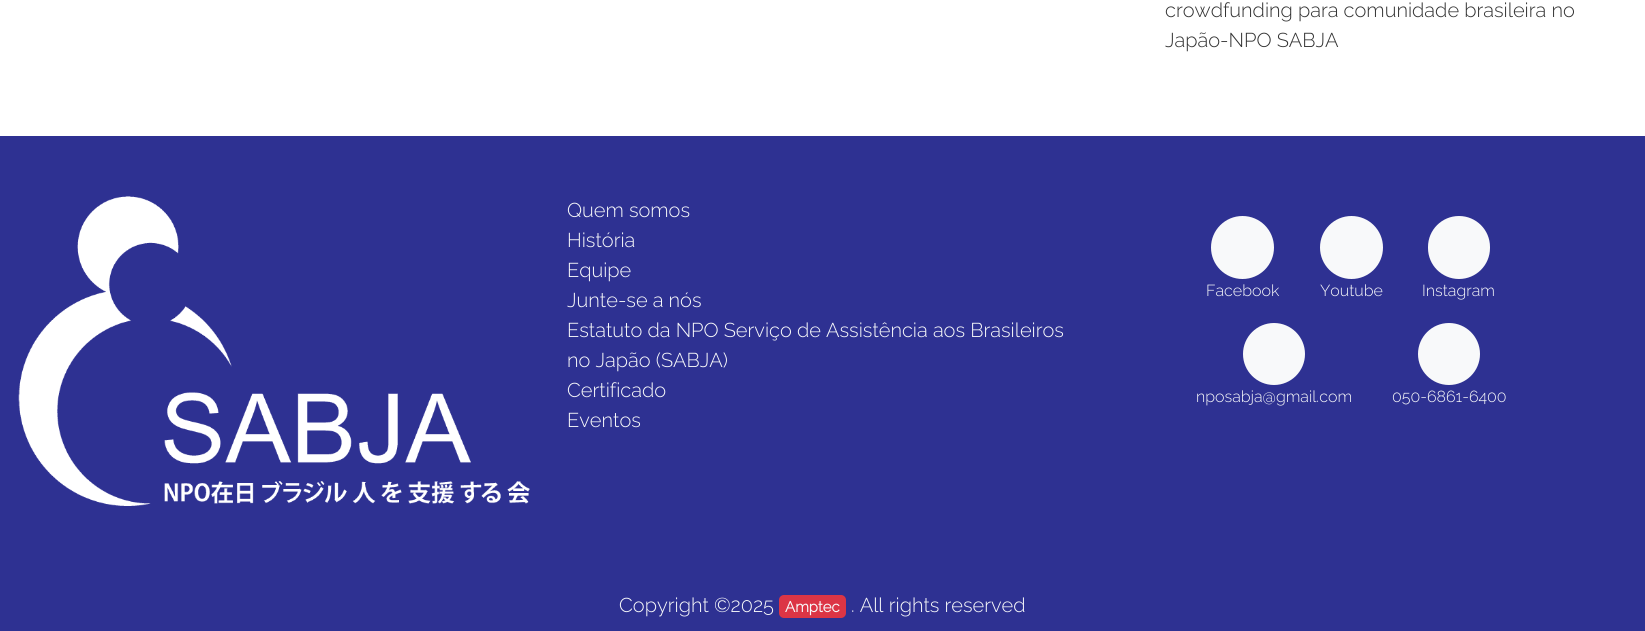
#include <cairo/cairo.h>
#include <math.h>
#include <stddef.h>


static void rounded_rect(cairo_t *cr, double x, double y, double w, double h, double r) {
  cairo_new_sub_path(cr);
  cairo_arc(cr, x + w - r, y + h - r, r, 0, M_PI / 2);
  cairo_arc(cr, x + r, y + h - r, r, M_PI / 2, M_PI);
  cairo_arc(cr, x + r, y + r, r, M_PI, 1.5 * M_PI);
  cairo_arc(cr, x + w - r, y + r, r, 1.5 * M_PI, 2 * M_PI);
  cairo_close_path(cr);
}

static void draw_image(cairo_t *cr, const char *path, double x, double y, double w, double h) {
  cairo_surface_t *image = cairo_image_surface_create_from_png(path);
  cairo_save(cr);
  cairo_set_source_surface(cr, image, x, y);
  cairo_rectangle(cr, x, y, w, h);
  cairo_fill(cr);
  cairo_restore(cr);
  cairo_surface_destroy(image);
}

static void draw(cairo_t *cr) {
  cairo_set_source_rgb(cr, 1, 1, 1);
  cairo_paint(cr);
  cairo_set_source_rgb(cr, 46 / 255.0, 49 / 255.0, 146 / 255.0);
  cairo_rectangle(cr, 0, 136, 1645, 495);
  cairo_fill(cr);
  draw_image(cr, "images/1.png", 18, 196, 512, 310);
  cairo_set_source_rgb(cr, 248 / 255.0, 249 / 255.0, 250 / 255.0);
  cairo_arc(cr, 1242.5, 247.5, 31.5, 0, 2 * M_PI);
  cairo_fill(cr);
  cairo_arc(cr, 1351.5, 247.5, 31.5, 0, 2 * M_PI);
  cairo_fill(cr);
  rounded_rect(cr, 1428, 216, 62, 63, 31);
  cairo_fill(cr);
  cairo_arc(cr, 1274, 354, 31, 0, 2 * M_PI);
  cairo_fill(cr);
  cairo_arc(cr, 1449, 354, 31, 0, 2 * M_PI);
  cairo_fill(cr);
  cairo_set_source_rgb(cr, 220 / 255.0, 53 / 255.0, 69 / 255.0);
  rounded_rect(cr, 779, 595, 67, 23, 5);
  cairo_fill(cr);
  cairo_select_font_face(cr, "Raleway Light", CAIRO_FONT_SLANT_NORMAL, CAIRO_FONT_WEIGHT_NORMAL);
  cairo_set_font_size(cr, 20);
  cairo_set_source_rgb(cr, 51 / 255.0, 51 / 255.0, 51 / 255.0);
  cairo_move_to(cr, 1165, 17);
  cairo_show_text(cr, "crowdfunding para comunidade brasileira no");
  cairo_move_to(cr, 1165, 47);
  cairo_show_text(cr, "Japão-NPO SABJA");
  cairo_set_source_rgb(cr, 248 / 255.0, 249 / 255.0, 250 / 255.0);
  cairo_move_to(cr, 567, 217);
  cairo_show_text(cr, "Quem somos");
  cairo_move_to(cr, 567, 247);
  cairo_show_text(cr, "História");
  cairo_move_to(cr, 567, 277);
  cairo_show_text(cr, "Equipe");
  cairo_move_to(cr, 567, 307);
  cairo_show_text(cr, "Junte-se a nós");
  cairo_move_to(cr, 567, 337);
  cairo_show_text(cr, "Estatuto da NPO Serviço de Assistência aos Brasileiros");
  cairo_move_to(cr, 567, 367);
  cairo_show_text(cr, "no Japão (SABJA)");
  cairo_move_to(cr, 567, 397);
  cairo_show_text(cr, "Certificado");
  cairo_move_to(cr, 567, 427);
  cairo_show_text(cr, "Eventos");
  cairo_set_font_size(cr, 16);
  cairo_move_to(cr, 1206, 296);
  cairo_show_text(cr, "Facebook");
  cairo_move_to(cr, 1320, 296);
  cairo_show_text(cr, "Youtube");
  cairo_move_to(cr, 1422, 296);
  cairo_show_text(cr, "Instagram");
  cairo_move_to(cr, 1196, 402);
  cairo_show_text(cr, "nposabja@gmail.com");
  cairo_move_to(cr, 1392, 402);
  cairo_show_text(cr, "050-6861-6400");
  cairo_set_font_size(cr, 20);
  cairo_move_to(cr, 619, 612);
  cairo_show_text(cr, "Copyright ©2025");
  cairo_select_font_face(cr, "Raleway", CAIRO_FONT_SLANT_NORMAL, CAIRO_FONT_WEIGHT_BOLD);
  cairo_set_font_size(cr, 15);
  cairo_move_to(cr, 785, 612);
  cairo_show_text(cr, "Amptec");
  cairo_select_font_face(cr, "Raleway Light", CAIRO_FONT_SLANT_NORMAL, CAIRO_FONT_WEIGHT_NORMAL);
  cairo_set_font_size(cr, 20);
  cairo_move_to(cr, 851, 612);
  cairo_show_text(cr, ". All rights reserved");
}

int main(void) {
  cairo_surface_t *surface = cairo_image_surface_create(CAIRO_FORMAT_RGB24, 1645, 631);
  cairo_t *cr = cairo_create(surface);
  cairo_font_options_t *options = cairo_font_options_create();
  cairo_font_options_set_hint_metrics(options, CAIRO_HINT_METRICS_OFF);
  cairo_font_options_set_hint_style(options, CAIRO_HINT_STYLE_NONE);
  cairo_set_font_options(cr, options);
  cairo_set_miter_limit(cr, 4);
  draw(cr);
  cairo_surface_write_to_png(surface, "out.png");
  cairo_font_options_destroy(options);
  cairo_destroy(cr);
  cairo_surface_destroy(surface);
  return 0;
}
